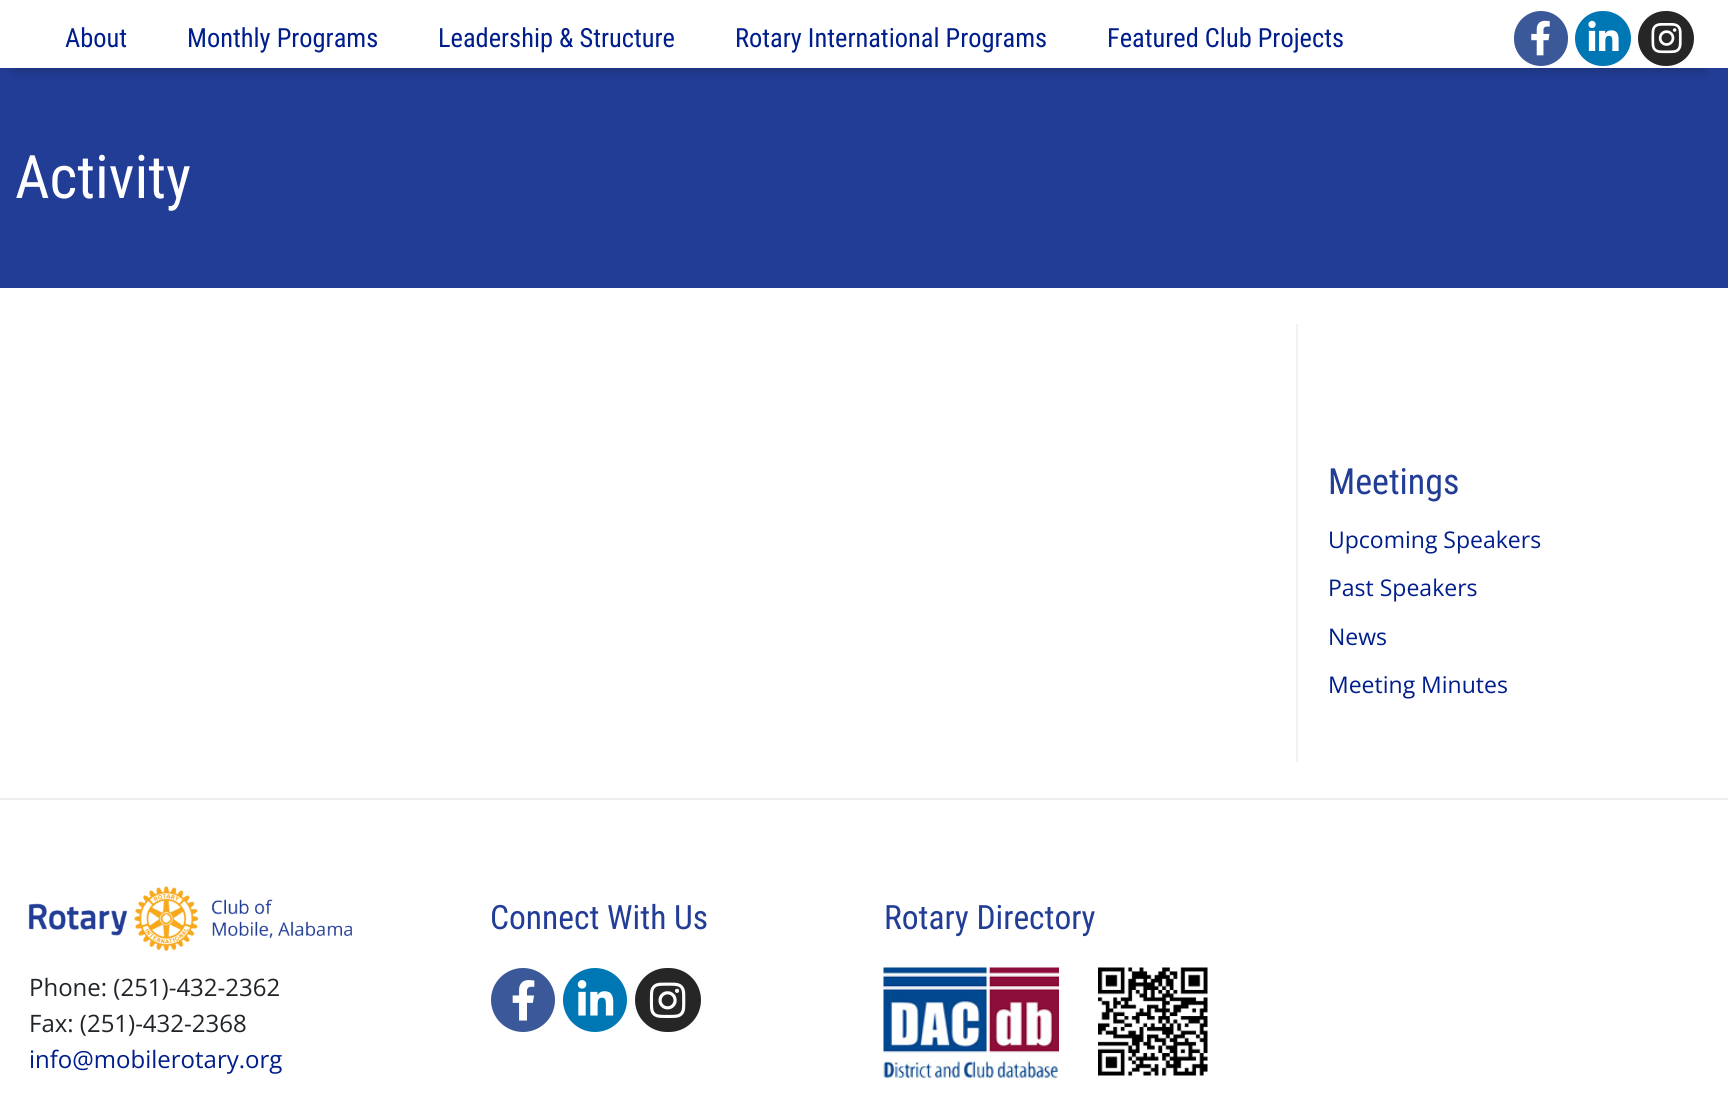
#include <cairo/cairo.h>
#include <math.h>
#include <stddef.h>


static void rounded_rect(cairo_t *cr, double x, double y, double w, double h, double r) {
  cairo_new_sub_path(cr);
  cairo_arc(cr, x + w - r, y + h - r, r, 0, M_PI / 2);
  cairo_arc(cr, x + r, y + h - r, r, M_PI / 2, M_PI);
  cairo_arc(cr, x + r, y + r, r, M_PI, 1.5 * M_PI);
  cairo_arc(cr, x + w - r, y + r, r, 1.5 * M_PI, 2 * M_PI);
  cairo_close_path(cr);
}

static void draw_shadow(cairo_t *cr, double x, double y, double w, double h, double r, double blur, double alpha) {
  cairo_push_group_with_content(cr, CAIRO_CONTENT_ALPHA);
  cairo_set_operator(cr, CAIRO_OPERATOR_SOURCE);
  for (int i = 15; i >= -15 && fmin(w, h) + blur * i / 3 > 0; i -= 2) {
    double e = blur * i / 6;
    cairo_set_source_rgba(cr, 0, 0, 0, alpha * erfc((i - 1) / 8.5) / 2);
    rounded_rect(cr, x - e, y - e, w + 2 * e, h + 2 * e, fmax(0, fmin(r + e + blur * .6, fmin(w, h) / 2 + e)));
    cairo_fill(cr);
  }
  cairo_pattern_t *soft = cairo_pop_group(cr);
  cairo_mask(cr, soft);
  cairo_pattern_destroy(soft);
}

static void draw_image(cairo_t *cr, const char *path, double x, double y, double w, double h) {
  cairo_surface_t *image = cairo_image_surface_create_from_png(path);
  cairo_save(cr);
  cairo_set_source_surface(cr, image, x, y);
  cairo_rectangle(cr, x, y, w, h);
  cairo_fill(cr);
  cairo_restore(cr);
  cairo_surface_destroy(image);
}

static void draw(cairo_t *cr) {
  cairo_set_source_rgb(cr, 1, 1, 1);
  cairo_paint(cr);
  cairo_set_source_rgb(cr, 34 / 255.0, 61 / 255.0, 150 / 255.0);
  cairo_rectangle(cr, 0, 68, 1728, 220);
  cairo_fill(cr);
  cairo_save(cr);
  cairo_set_fill_rule(cr, CAIRO_FILL_RULE_EVEN_ODD);
  cairo_new_path(cr);
  cairo_move_to(cr, 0, 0);
  cairo_line_to(cr, 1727, 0);
  cairo_line_to(cr, 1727, 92);
  cairo_line_to(cr, 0, 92);
  cairo_close_path(cr);
  cairo_move_to(cr, 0, -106);
  cairo_line_to(cr, 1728, -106);
  cairo_line_to(cr, 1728, 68);
  cairo_line_to(cr, 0, 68);
  cairo_close_path(cr);
  cairo_clip(cr);
  cairo_set_source_rgb(cr, 0, 0, 0);
  draw_shadow(cr, 14, -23, 1689, 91, 0, 7.5, 0.29);
  cairo_restore(cr);
  cairo_set_source_rgba(cr, 1, 1, 1, 0.82);
  cairo_rectangle(cr, 7, 67, 1703, 1);
  cairo_fill(cr);
  cairo_set_source_rgb(cr, 59 / 255.0, 89 / 255.0, 152 / 255.0);
  rounded_rect(cr, 1514, 11, 54, 55, 27);
  cairo_fill(cr);
  draw_image(cr, "images/1.png", 1531, 20, 19, 36);
  cairo_set_source_rgb(cr, 0, 119 / 255.0, 181 / 255.0);
  rounded_rect(cr, 1575, 11, 56, 55, 27.5);
  cairo_fill(cr);
  draw_image(cr, "images/2.png", 1588, 20, 31, 31);
  cairo_set_source_rgb(cr, 38 / 255.0, 38 / 255.0, 38 / 255.0);
  rounded_rect(cr, 1638, 11, 56, 55, 27.5);
  cairo_fill(cr);
  draw_image(cr, "images/3.png", 1651, 23, 31, 31);
  cairo_set_source_rgb(cr, 241 / 255.0, 242 / 255.0, 244 / 255.0);
  cairo_rectangle(cr, 1296, 324, 2, 438);
  cairo_fill(cr);
  cairo_set_source_rgb(cr, 238 / 255.0, 238 / 255.0, 238 / 255.0);
  cairo_rectangle(cr, 0, 798, 1728, 2);
  cairo_fill(cr);
  cairo_set_source_rgb(cr, 59 / 255.0, 89 / 255.0, 152 / 255.0);
  cairo_arc(cr, 523, 1000, 32, 0, 2 * M_PI);
  cairo_fill(cr);
  draw_image(cr, "images/4.png", 512, 980, 23, 41);
  cairo_set_source_rgb(cr, 0, 119 / 255.0, 181 / 255.0);
  cairo_arc(cr, 595, 1000, 32, 0, 2 * M_PI);
  cairo_fill(cr);
  draw_image(cr, "images/5.png", 577, 980, 37, 36);
  cairo_set_source_rgb(cr, 38 / 255.0, 38 / 255.0, 38 / 255.0);
  rounded_rect(cr, 635, 968, 66, 64, 32);
  cairo_fill(cr);
  draw_image(cr, "images/6.png", 649, 982, 37, 36);
  draw_image(cr, "images/7.png", 883, 967, 176, 112);
  draw_image(cr, "images/8.png", 1098, 967, 110, 109);
  draw_image(cr, "images/9.png", 28, 886, 324, 65);
  cairo_select_font_face(cr, "Roboto Condensed", CAIRO_FONT_SLANT_NORMAL, CAIRO_FONT_WEIGHT_NORMAL);
  cairo_set_font_size(cr, 26.4);
  cairo_set_source_rgb(cr, 0, 30 / 255.0, 139 / 255.0);
  cairo_move_to(cr, 65, 47);
  cairo_show_text(cr, "About");
  cairo_move_to(cr, 187, 47);
  cairo_show_text(cr, "Monthly Programs");
  cairo_move_to(cr, 438, 47);
  cairo_show_text(cr, "Leadership & Structure");
  cairo_move_to(cr, 735, 47);
  cairo_show_text(cr, "Rotary International Programs");
  cairo_move_to(cr, 1107, 47);
  cairo_show_text(cr, "Featured Club Projects");
  cairo_set_font_size(cr, 60);
  cairo_set_source_rgb(cr, 1, 1, 1);
  cairo_move_to(cr, 15, 198);
  cairo_show_text(cr, "Activity");
  cairo_set_font_size(cr, 36);
  cairo_set_source_rgb(cr, 34 / 255.0, 61 / 255.0, 150 / 255.0);
  cairo_move_to(cr, 1328, 494);
  cairo_show_text(cr, "Meetings");
  cairo_select_font_face(cr, "Open Sans", CAIRO_FONT_SLANT_NORMAL, CAIRO_FONT_WEIGHT_NORMAL);
  cairo_set_font_size(cr, 23);
  cairo_set_source_rgb(cr, 0, 30 / 255.0, 139 / 255.0);
  cairo_move_to(cr, 1328, 548);
  cairo_show_text(cr, "Upcoming Speakers");
  cairo_move_to(cr, 1328, 596);
  cairo_show_text(cr, "Past Speakers");
  cairo_move_to(cr, 1328, 645);
  cairo_show_text(cr, "News");
  cairo_move_to(cr, 1328, 693);
  cairo_show_text(cr, "Meeting Minutes");
  cairo_select_font_face(cr, "Roboto Condensed", CAIRO_FONT_SLANT_NORMAL, CAIRO_FONT_WEIGHT_NORMAL);
  cairo_set_font_size(cr, 33.5);
  cairo_set_source_rgb(cr, 34 / 255.0, 61 / 255.0, 150 / 255.0);
  cairo_move_to(cr, 490, 929);
  cairo_show_text(cr, "Connect With Us");
  cairo_move_to(cr, 884, 929);
  cairo_show_text(cr, "Rotary Directory");
  cairo_select_font_face(cr, "Open Sans", CAIRO_FONT_SLANT_NORMAL, CAIRO_FONT_WEIGHT_NORMAL);
  cairo_set_font_size(cr, 24);
  cairo_set_source_rgb(cr, 33 / 255.0, 37 / 255.0, 41 / 255.0);
  cairo_move_to(cr, 29, 996);
  cairo_show_text(cr, "Phone: (251)-432-2362");
  cairo_move_to(cr, 29, 1032);
  cairo_show_text(cr, "Fax: (251)-432-2368");
  cairo_set_source_rgb(cr, 0, 30 / 255.0, 139 / 255.0);
  cairo_move_to(cr, 29, 1068);
  cairo_show_text(cr, "info@mobilerotary.org");
}

int main(void) {
  cairo_surface_t *surface = cairo_image_surface_create(CAIRO_FORMAT_RGB24, 1728, 1114);
  cairo_t *cr = cairo_create(surface);
  cairo_font_options_t *options = cairo_font_options_create();
  cairo_font_options_set_hint_metrics(options, CAIRO_HINT_METRICS_OFF);
  cairo_font_options_set_hint_style(options, CAIRO_HINT_STYLE_NONE);
  cairo_set_font_options(cr, options);
  cairo_set_miter_limit(cr, 4);
  draw(cr);
  cairo_surface_write_to_png(surface, "out.png");
  cairo_font_options_destroy(options);
  cairo_destroy(cr);
  cairo_surface_destroy(surface);
  return 0;
}
